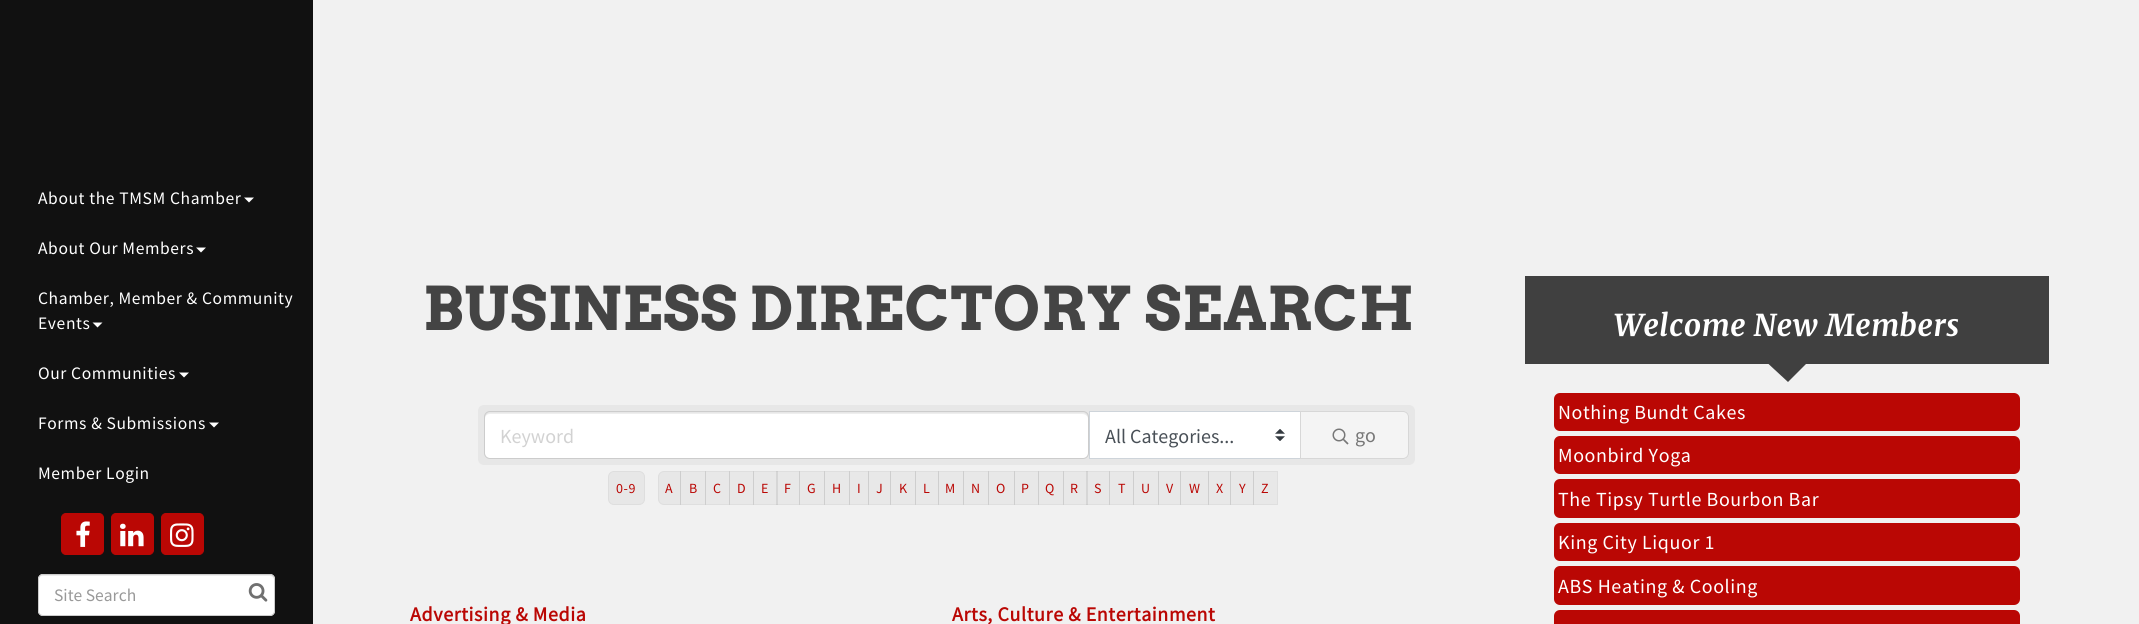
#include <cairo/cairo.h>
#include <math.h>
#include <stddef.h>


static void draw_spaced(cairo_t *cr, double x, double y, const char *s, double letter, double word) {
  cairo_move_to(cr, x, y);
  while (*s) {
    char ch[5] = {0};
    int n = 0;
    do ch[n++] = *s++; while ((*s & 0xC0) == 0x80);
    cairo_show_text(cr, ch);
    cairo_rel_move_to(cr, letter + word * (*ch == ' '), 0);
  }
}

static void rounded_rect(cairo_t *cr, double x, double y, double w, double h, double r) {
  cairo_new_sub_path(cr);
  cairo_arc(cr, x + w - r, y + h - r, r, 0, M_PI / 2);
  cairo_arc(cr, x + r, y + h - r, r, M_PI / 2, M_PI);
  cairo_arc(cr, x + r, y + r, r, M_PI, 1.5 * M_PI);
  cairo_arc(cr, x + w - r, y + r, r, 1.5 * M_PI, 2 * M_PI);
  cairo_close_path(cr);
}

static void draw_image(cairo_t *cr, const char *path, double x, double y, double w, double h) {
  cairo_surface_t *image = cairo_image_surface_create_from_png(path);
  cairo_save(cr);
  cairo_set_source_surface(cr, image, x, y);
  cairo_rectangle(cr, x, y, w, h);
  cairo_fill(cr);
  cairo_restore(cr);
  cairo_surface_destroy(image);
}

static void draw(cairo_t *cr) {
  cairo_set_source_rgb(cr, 241 / 255.0, 241 / 255.0, 241 / 255.0);
  cairo_paint(cr);
  cairo_set_source_rgb(cr, 17 / 255.0, 17 / 255.0, 17 / 255.0);
  cairo_rectangle(cr, 0, 0, 313, 624);
  cairo_fill(cr);
  cairo_set_source_rgb(cr, 1, 1, 1);
  cairo_new_path(cr);
  cairo_move_to(cr, 244, 197.5);
  cairo_line_to(cr, 254, 197.5);
  cairo_line_to(cr, 249, 202.5);
  cairo_close_path(cr);
  cairo_fill(cr);
  cairo_new_path(cr);
  cairo_move_to(cr, 196, 247.5);
  cairo_line_to(cr, 206, 247.5);
  cairo_line_to(cr, 201, 252.5);
  cairo_close_path(cr);
  cairo_fill(cr);
  cairo_new_path(cr);
  cairo_move_to(cr, 92.5, 322.5);
  cairo_line_to(cr, 102.5, 322.5);
  cairo_line_to(cr, 97.5, 327.5);
  cairo_close_path(cr);
  cairo_fill(cr);
  cairo_new_path(cr);
  cairo_move_to(cr, 179, 372.5);
  cairo_line_to(cr, 189, 372.5);
  cairo_line_to(cr, 184, 377.5);
  cairo_close_path(cr);
  cairo_fill(cr);
  cairo_new_path(cr);
  cairo_move_to(cr, 209, 422.5);
  cairo_line_to(cr, 219, 422.5);
  cairo_line_to(cr, 214, 427.5);
  cairo_close_path(cr);
  cairo_fill(cr);
  cairo_set_source_rgb(cr, 186 / 255.0, 7 / 255.0, 4 / 255.0);
  rounded_rect(cr, 61.5, 513.5, 42, 41, 4.5);
  cairo_fill_preserve(cr);
  cairo_set_line_width(cr, 1);
  cairo_stroke(cr);
  draw_image(cr, "images/1.png", 76, 521, 14, 26);
  rounded_rect(cr, 111.5, 513.5, 42, 41, 4.5);
  cairo_fill_preserve(cr);
  cairo_stroke(cr);
  draw_image(cr, "images/2.png", 120, 523, 24, 24);
  rounded_rect(cr, 161.5, 513.5, 42, 41, 4.5);
  cairo_fill_preserve(cr);
  cairo_stroke(cr);
  draw_image(cr, "images/3.png", 170, 523, 24, 24);
  cairo_set_source_rgb(cr, 1, 1, 1);
  rounded_rect(cr, 38, 574, 237, 42, 5);
  cairo_fill(cr);
  cairo_set_source_rgb(cr, 236 / 255.0, 236 / 255.0, 236 / 255.0);
  cairo_new_path(cr);
  cairo_move_to(cr, 42, 576);
  cairo_line_to(cr, 270, 576);
  cairo_curve_to(cr, 272, 576, 274, 578, 274, 580);
  cairo_curve_to(cr, 274, 577, 273, 575, 270, 575);
  cairo_line_to(cr, 43, 575);
  cairo_curve_to(cr, 40, 575, 39, 577, 39, 580);
  cairo_curve_to(cr, 39, 578, 40, 576, 42, 576);
  cairo_close_path(cr);
  cairo_fill(cr);
  rounded_rect(cr, 38.5, 574.5, 236, 41, 4.5);
  cairo_set_source_rgb(cr, 204 / 255.0, 204 / 255.0, 204 / 255.0);
  cairo_stroke(cr);
  draw_image(cr, "images/4.png", 248, 583, 20, 19);
  cairo_set_source_rgb(cr, 231 / 255.0, 231 / 255.0, 231 / 255.0);
  rounded_rect(cr, 478, 405, 937, 60, 6);
  cairo_fill(cr);
  cairo_set_source_rgb(cr, 1, 1, 1);
  rounded_rect(cr, 485, 413, 603, 45, 5);
  cairo_fill(cr);
  cairo_set_source_rgba(cr, 0, 0, 0, 0.07);
  cairo_new_path(cr);
  cairo_move_to(cr, 490, 414);
  cairo_line_to(cr, 1082, 414);
  cairo_curve_to(cr, 1085, 414, 1088, 416, 1088, 419);
  cairo_line_to(cr, 1088, 418);
  cairo_curve_to(cr, 1088, 415, 1086, 413, 1083, 413);
  cairo_line_to(cr, 490, 413);
  cairo_curve_to(cr, 487, 413, 485, 415, 485, 418);
  cairo_line_to(cr, 485, 419);
  cairo_curve_to(cr, 485, 416, 487, 414, 490, 414);
  cairo_close_path(cr);
  cairo_fill(cr);
  rounded_rect(cr, 484.5, 411.5, 604, 47, 5.5);
  cairo_set_source_rgba(cr, 0, 0, 0, 0.12);
  cairo_stroke(cr);
  cairo_set_source_rgb(cr, 1, 1, 1);
  cairo_rectangle(cr, 1090, 412, 210, 46);
  cairo_fill(cr);
  draw_image(cr, "images/5.png", 1275, 429, 10, 12);
  cairo_rectangle(cr, 1089.5, 411.5, 211, 47);
  cairo_set_source_rgb(cr, 206 / 255.0, 212 / 255.0, 218 / 255.0);
  cairo_stroke(cr);
  cairo_set_source_rgb(cr, 244 / 255.0, 244 / 255.0, 244 / 255.0);
  cairo_new_path(cr);
  cairo_move_to(cr, 1300, 411);
  cairo_line_to(cr, 1403, 411);
  cairo_curve_to(cr, 1406.5, 411, 1409, 413.5, 1409, 417);
  cairo_line_to(cr, 1409, 453);
  cairo_curve_to(cr, 1409, 456.5, 1406.5, 459, 1403, 459);
  cairo_line_to(cr, 1300, 459);
  cairo_close_path(cr);
  cairo_fill(cr);
  cairo_new_path(cr);
  cairo_move_to(cr, 1300.5, 411.5);
  cairo_line_to(cr, 1403, 411.5);
  cairo_curve_to(cr, 1406, 411.5, 1408.5, 414, 1408.5, 417);
  cairo_line_to(cr, 1408.5, 453);
  cairo_curve_to(cr, 1408.5, 456, 1406, 458.5, 1403, 458.5);
  cairo_line_to(cr, 1300.5, 458.5);
  cairo_close_path(cr);
  cairo_set_source_rgba(cr, 0, 0, 0, 0.12);
  cairo_stroke(cr);
  draw_image(cr, "images/6.png", 1332, 428, 17, 17);
  cairo_set_source_rgb(cr, 231 / 255.0, 231 / 255.0, 231 / 255.0);
  rounded_rect(cr, 608.5, 471.5, 36, 33, 5.5);
  cairo_fill_preserve(cr);
  cairo_set_source_rgb(cr, 222 / 255.0, 222 / 255.0, 222 / 255.0);
  cairo_stroke(cr);
  cairo_set_source_rgb(cr, 231 / 255.0, 231 / 255.0, 231 / 255.0);
  cairo_new_path(cr);
  cairo_move_to(cr, 664, 471.5);
  cairo_line_to(cr, 680.5, 471.5);
  cairo_line_to(cr, 680.5, 504.5);
  cairo_line_to(cr, 664, 504.5);
  cairo_curve_to(cr, 661, 504.5, 658.5, 502, 658.5, 499);
  cairo_line_to(cr, 658.5, 477);
  cairo_curve_to(cr, 658.5, 474, 661, 471.5, 664, 471.5);
  cairo_close_path(cr);
  cairo_fill_preserve(cr);
  cairo_set_source_rgb(cr, 222 / 255.0, 222 / 255.0, 222 / 255.0);
  cairo_stroke(cr);
  cairo_set_source_rgba(cr, 0, 0, 0, 0.04);
  cairo_rectangle(cr, 680, 471, 26, 34);
  cairo_fill(cr);
  cairo_rectangle(cr, 680.5, 471.5, 25, 33);
  cairo_stroke(cr);
  cairo_rectangle(cr, 705, 471, 25, 34);
  cairo_fill(cr);
  cairo_rectangle(cr, 705.5, 471.5, 24, 33);
  cairo_stroke(cr);
  cairo_rectangle(cr, 729, 471, 25, 34);
  cairo_fill(cr);
  cairo_rectangle(cr, 729.5, 471.5, 24, 33);
  cairo_stroke(cr);
  cairo_rectangle(cr, 753, 471, 25, 34);
  cairo_fill(cr);
  cairo_rectangle(cr, 753.5, 471.5, 24, 33);
  cairo_stroke(cr);
  cairo_rectangle(cr, 776, 471, 24, 34);
  cairo_fill(cr);
  cairo_rectangle(cr, 776.5, 471.5, 23, 33);
  cairo_stroke(cr);
  cairo_rectangle(cr, 799, 471, 26, 34);
  cairo_fill(cr);
  cairo_rectangle(cr, 799.5, 471.5, 25, 33);
  cairo_stroke(cr);
  cairo_rectangle(cr, 824, 471, 26, 34);
  cairo_fill(cr);
  cairo_rectangle(cr, 824.5, 471.5, 25, 33);
  cairo_stroke(cr);
  cairo_rectangle(cr, 849, 471, 20, 34);
  cairo_fill(cr);
  cairo_rectangle(cr, 849.5, 471.5, 19, 33);
  cairo_stroke(cr);
  cairo_rectangle(cr, 868, 471, 23, 34);
  cairo_fill(cr);
  cairo_rectangle(cr, 868.5, 471.5, 22, 33);
  cairo_stroke(cr);
  cairo_rectangle(cr, 890, 471, 26, 34);
  cairo_fill(cr);
  cairo_rectangle(cr, 890.5, 471.5, 25, 33);
  cairo_stroke(cr);
  cairo_rectangle(cr, 915, 471, 24, 34);
  cairo_fill(cr);
  cairo_rectangle(cr, 915.5, 471.5, 23, 33);
  cairo_stroke(cr);
  cairo_rectangle(cr, 938, 471, 26, 34);
  cairo_fill(cr);
  cairo_rectangle(cr, 938.5, 471.5, 25, 33);
  cairo_stroke(cr);
  cairo_rectangle(cr, 963, 471, 26, 34);
  cairo_fill(cr);
  cairo_rectangle(cr, 963.5, 471.5, 25, 33);
  cairo_stroke(cr);
  cairo_rectangle(cr, 988, 471, 27, 34);
  cairo_fill(cr);
  cairo_rectangle(cr, 988.5, 471.5, 26, 33);
  cairo_stroke(cr);
  cairo_rectangle(cr, 1014, 471, 25, 34);
  cairo_fill(cr);
  cairo_rectangle(cr, 1014.5, 471.5, 24, 33);
  cairo_stroke(cr);
  cairo_rectangle(cr, 1038, 471, 26, 34);
  cairo_fill(cr);
  cairo_rectangle(cr, 1038.5, 471.5, 25, 33);
  cairo_stroke(cr);
  cairo_rectangle(cr, 1063, 471, 25, 34);
  cairo_fill(cr);
  cairo_rectangle(cr, 1063.5, 471.5, 24, 33);
  cairo_stroke(cr);
  cairo_rectangle(cr, 1086, 471, 24, 34);
  cairo_fill(cr);
  cairo_rectangle(cr, 1086.5, 471.5, 23, 33);
  cairo_stroke(cr);
  cairo_rectangle(cr, 1109, 471, 25, 34);
  cairo_fill(cr);
  cairo_rectangle(cr, 1109.5, 471.5, 24, 33);
  cairo_stroke(cr);
  cairo_rectangle(cr, 1133, 471, 26, 34);
  cairo_fill(cr);
  cairo_rectangle(cr, 1133.5, 471.5, 25, 33);
  cairo_stroke(cr);
  cairo_rectangle(cr, 1158, 471, 23, 34);
  cairo_fill(cr);
  cairo_rectangle(cr, 1158.5, 471.5, 22, 33);
  cairo_stroke(cr);
  cairo_rectangle(cr, 1180, 471, 29, 34);
  cairo_fill(cr);
  cairo_rectangle(cr, 1180.5, 471.5, 28, 33);
  cairo_stroke(cr);
  cairo_rectangle(cr, 1208, 471, 23, 34);
  cairo_fill(cr);
  cairo_rectangle(cr, 1208.5, 471.5, 22, 33);
  cairo_stroke(cr);
  cairo_rectangle(cr, 1230, 471, 24, 34);
  cairo_fill(cr);
  cairo_rectangle(cr, 1230.5, 471.5, 23, 33);
  cairo_stroke(cr);
  cairo_rectangle(cr, 1253, 471, 25, 34);
  cairo_fill(cr);
  cairo_rectangle(cr, 1253.5, 471.5, 24, 33);
  cairo_stroke(cr);
  cairo_set_source_rgb(cr, 64 / 255.0, 64 / 255.0, 64 / 255.0);
  cairo_rectangle(cr, 1525, 276, 524, 88);
  cairo_fill(cr);
  cairo_new_path(cr);
  cairo_move_to(cr, 1762, 358);
  cairo_line_to(cr, 1812, 358);
  cairo_line_to(cr, 1788, 382);
  cairo_close_path(cr);
  cairo_fill(cr);
  cairo_set_source_rgb(cr, 186 / 255.0, 7 / 255.0, 4 / 255.0);
  rounded_rect(cr, 1554, 393, 466, 38, 6);
  cairo_fill(cr);
  rounded_rect(cr, 1554, 436, 466, 38, 6);
  cairo_fill(cr);
  rounded_rect(cr, 1554, 479, 466, 39, 6);
  cairo_fill(cr);
  rounded_rect(cr, 1554, 523, 466, 38, 6);
  cairo_fill(cr);
  rounded_rect(cr, 1554, 566, 466, 39, 6);
  cairo_fill(cr);
  rounded_rect(cr, 1554, 610, 466, 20, 6);
  cairo_fill(cr);
  cairo_select_font_face(cr, "Source Sans Pro", CAIRO_FONT_SLANT_NORMAL, CAIRO_FONT_WEIGHT_NORMAL);
  cairo_set_font_size(cr, 17.5);
  cairo_set_source_rgb(cr, 1, 1, 1);
  draw_spaced(cr, 38, 204, "About the TMSM Chamber", 0.6, 0);
  draw_spaced(cr, 38, 254, "About Our Members", 0.6, 0);
  draw_spaced(cr, 38, 304, "Chamber, Member & Community", 0.6, 0);
  draw_spaced(cr, 38, 329, "Events", 0.6, 0);
  draw_spaced(cr, 38, 379, "Our Communities", 0.6, 0);
  draw_spaced(cr, 38, 429, "Forms & Submissions", 0.6, 0);
  draw_spaced(cr, 38, 479, "Member Login", 0.6, 0);
  cairo_set_source_rgb(cr, 153 / 255.0, 153 / 255.0, 153 / 255.0);
  cairo_move_to(cr, 54, 601);
  cairo_show_text(cr, "Site Search");
  cairo_select_font_face(cr, "Arvo", CAIRO_FONT_SLANT_NORMAL, CAIRO_FONT_WEIGHT_BOLD);
  cairo_set_font_size(cr, 60);
  cairo_set_source_rgb(cr, 68 / 255.0, 68 / 255.0, 68 / 255.0);
  draw_spaced(cr, 423, 330, "BUSINESS DIRECTORY SEARCH", 0.6, 0);
  cairo_select_font_face(cr, "Source Sans Pro", CAIRO_FONT_SLANT_NORMAL, CAIRO_FONT_WEIGHT_NORMAL);
  cairo_set_font_size(cr, 20);
  cairo_set_source_rgb(cr, 210 / 255.0, 210 / 255.0, 210 / 255.0);
  cairo_move_to(cr, 500, 443);
  cairo_show_text(cr, "Keyword");
  cairo_set_source_rgb(cr, 73 / 255.0, 80 / 255.0, 87 / 255.0);
  cairo_move_to(cr, 1105, 443);
  cairo_show_text(cr, "All Categories...");
  cairo_set_source_rgb(cr, 119 / 255.0, 119 / 255.0, 119 / 255.0);
  cairo_move_to(cr, 1355, 442);
  cairo_show_text(cr, "go");
  cairo_set_font_size(cr, 14);
  cairo_set_source_rgb(cr, 186 / 255.0, 7 / 255.0, 4 / 255.0);
  draw_spaced(cr, 616, 493, "0-9", 0.6, 0);
  draw_spaced(cr, 665, 493, "A", 0.6, 0);
  draw_spaced(cr, 689, 493, "B", 0.6, 0);
  draw_spaced(cr, 713, 493, "C", 0.6, 0);
  draw_spaced(cr, 737, 493, "D", 0.6, 0);
  draw_spaced(cr, 761, 493, "E", 0.6, 0);
  draw_spaced(cr, 784, 493, "F", 0.6, 0);
  draw_spaced(cr, 807, 493, "G", 0.6, 0);
  draw_spaced(cr, 832, 493, "H", 0.6, 0);
  draw_spaced(cr, 857, 493, "I", 0.6, 0);
  draw_spaced(cr, 876, 493, "J", 0.6, 0);
  draw_spaced(cr, 899, 493, "K", 0.6, 0);
  draw_spaced(cr, 923, 493, "L", 0.6, 0);
  draw_spaced(cr, 945, 493, "M", 0.6, 0);
  draw_spaced(cr, 971, 493, "N", 0.6, 0);
  draw_spaced(cr, 996, 493, "O", 0.6, 0);
  draw_spaced(cr, 1021, 493, "P", 0.6, 0);
  draw_spaced(cr, 1045, 493, "Q", 0.6, 0);
  draw_spaced(cr, 1070, 493, "R", 0.6, 0);
  draw_spaced(cr, 1094, 493, "S", 0.6, 0);
  draw_spaced(cr, 1118, 493, "T", 0.6, 0);
  draw_spaced(cr, 1141, 493, "U", 0.6, 0);
  draw_spaced(cr, 1166, 493, "V", 0.6, 0);
  draw_spaced(cr, 1189, 493, "W", 0.6, 0);
  draw_spaced(cr, 1216, 493, "X", 0.6, 0);
  draw_spaced(cr, 1239, 493, "Y", 0.6, 0);
  draw_spaced(cr, 1261, 493, "Z", 0.6, 0);
  cairo_select_font_face(cr, "Source Sans Pro", CAIRO_FONT_SLANT_NORMAL, CAIRO_FONT_WEIGHT_BOLD);
  cairo_set_font_size(cr, 20);
  draw_spaced(cr, 410, 621, "Advertising & Media", 0.6, 0);
  draw_spaced(cr, 952, 621, "Arts, Culture & Entertainment", 0.6, 0);
  cairo_select_font_face(cr, "Merriweather Light", CAIRO_FONT_SLANT_ITALIC, CAIRO_FONT_WEIGHT_NORMAL);
  cairo_set_font_size(cr, 30);
  cairo_set_source_rgb(cr, 1, 1, 1);
  draw_spaced(cr, 1614, 336, "Welcome New Members", 0.6, 0);
  cairo_select_font_face(cr, "Source Sans Pro", CAIRO_FONT_SLANT_NORMAL, CAIRO_FONT_WEIGHT_NORMAL);
  cairo_set_font_size(cr, 20);
  draw_spaced(cr, 1558, 419, "Nothing Bundt Cakes", 0.6, 0);
  draw_spaced(cr, 1558, 462, "Moonbird Yoga", 0.6, 0);
  draw_spaced(cr, 1558, 506, "The Tipsy Turtle Bourbon Bar", 0.6, 0);
  draw_spaced(cr, 1558, 549, "King City Liquor 1", 0.6, 0);
  draw_spaced(cr, 1558, 593, "ABS Heating & Cooling", 0.6, 0);
}

int main(void) {
  cairo_surface_t *surface = cairo_image_surface_create(CAIRO_FORMAT_RGB24, 2139, 624);
  cairo_t *cr = cairo_create(surface);
  cairo_font_options_t *options = cairo_font_options_create();
  cairo_font_options_set_hint_metrics(options, CAIRO_HINT_METRICS_OFF);
  cairo_font_options_set_hint_style(options, CAIRO_HINT_STYLE_NONE);
  cairo_set_font_options(cr, options);
  cairo_set_miter_limit(cr, 4);
  draw(cr);
  cairo_surface_write_to_png(surface, "out.png");
  cairo_font_options_destroy(options);
  cairo_destroy(cr);
  cairo_surface_destroy(surface);
  return 0;
}
